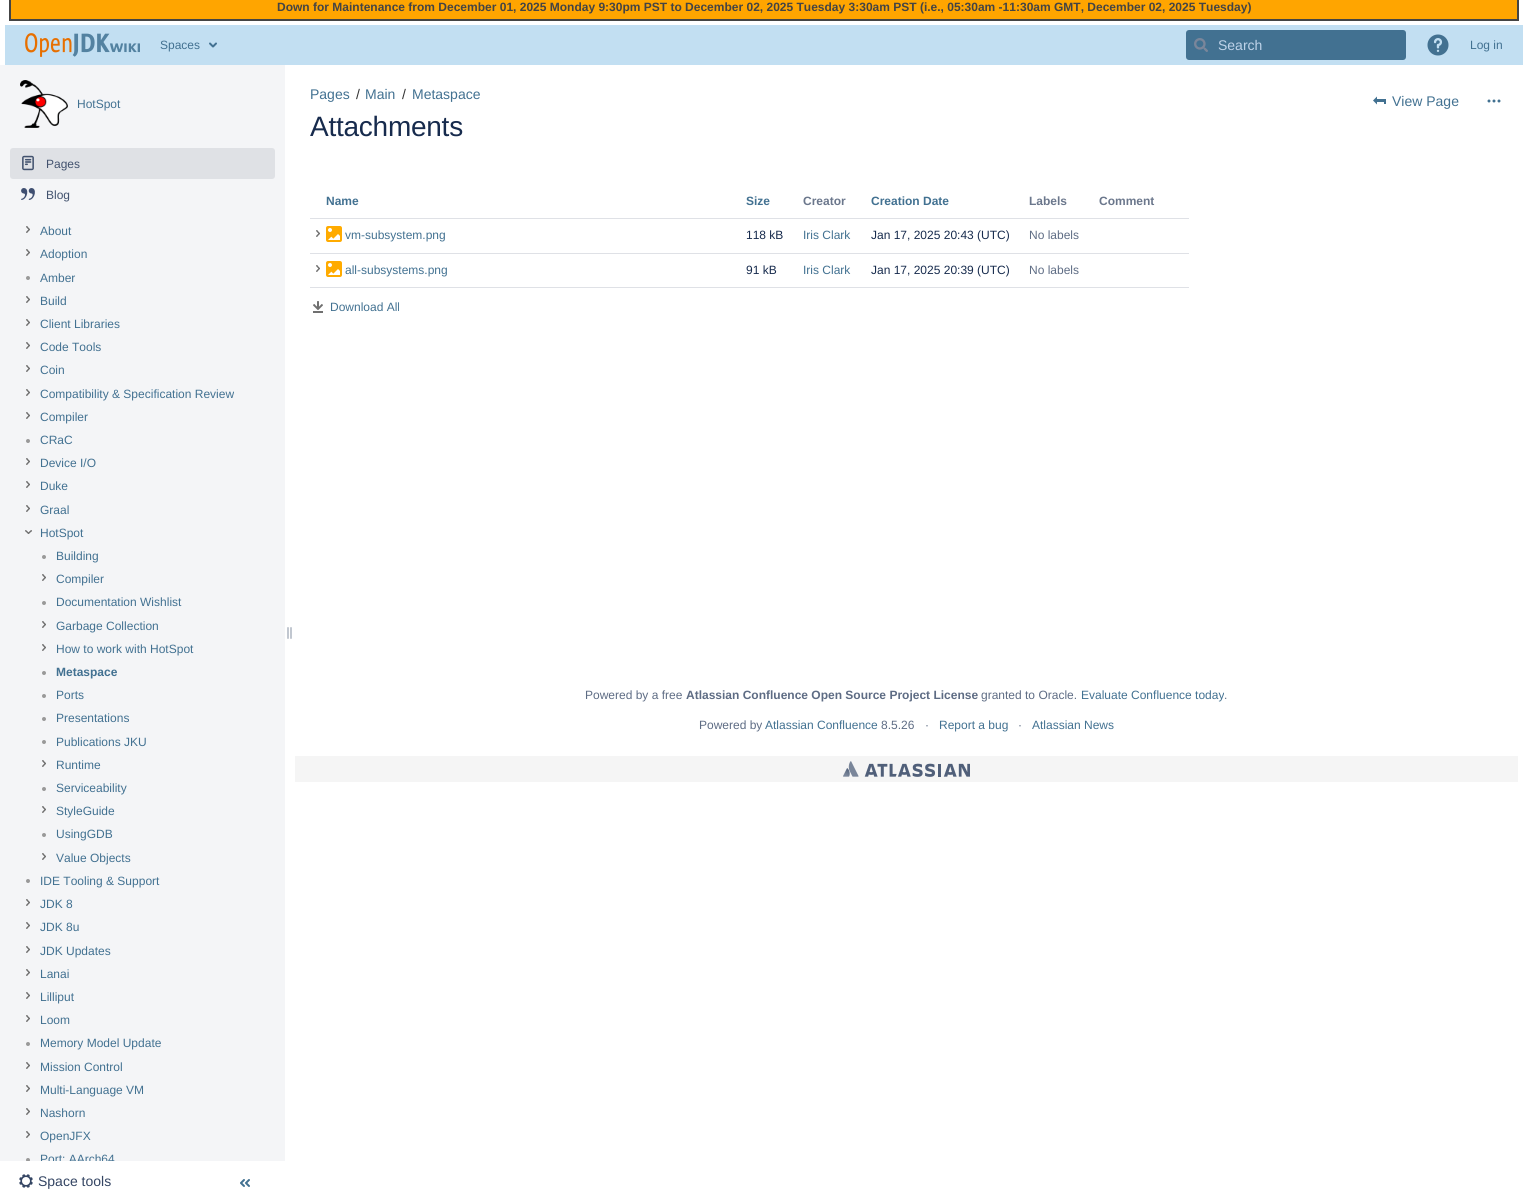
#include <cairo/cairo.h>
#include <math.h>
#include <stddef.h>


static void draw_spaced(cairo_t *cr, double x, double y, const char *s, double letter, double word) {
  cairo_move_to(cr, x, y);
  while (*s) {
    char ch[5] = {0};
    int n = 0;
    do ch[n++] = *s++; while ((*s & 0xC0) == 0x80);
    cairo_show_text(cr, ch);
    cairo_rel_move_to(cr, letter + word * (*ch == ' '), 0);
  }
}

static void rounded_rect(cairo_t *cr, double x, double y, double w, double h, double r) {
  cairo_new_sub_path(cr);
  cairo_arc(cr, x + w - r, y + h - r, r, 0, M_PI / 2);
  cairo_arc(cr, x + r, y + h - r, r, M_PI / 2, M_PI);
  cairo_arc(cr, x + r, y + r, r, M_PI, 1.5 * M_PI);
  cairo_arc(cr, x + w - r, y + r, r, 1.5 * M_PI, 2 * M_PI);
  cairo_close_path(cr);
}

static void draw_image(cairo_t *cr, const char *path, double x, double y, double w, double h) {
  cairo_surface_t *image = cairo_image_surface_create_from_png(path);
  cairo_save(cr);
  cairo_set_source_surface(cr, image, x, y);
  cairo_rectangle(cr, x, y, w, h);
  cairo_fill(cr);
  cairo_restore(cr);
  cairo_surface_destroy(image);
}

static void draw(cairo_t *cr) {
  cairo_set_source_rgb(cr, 1, 1, 1);
  cairo_paint(cr);
  cairo_set_source_rgb(cr, 1, 165 / 255.0, 0);
  cairo_rectangle(cr, 10, -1, 1508, 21);
  cairo_fill_preserve(cr);
  cairo_set_source_rgb(cr, 68 / 255.0, 68 / 255.0, 68 / 255.0);
  cairo_stroke(cr);
  cairo_set_source_rgb(cr, 194 / 255.0, 223 / 255.0, 242 / 255.0);
  cairo_rectangle(cr, 5, 25, 1518, 40);
  cairo_fill(cr);
  draw_image(cr, "images/1.png", 25, 33, 115, 24);
  draw_image(cr, "images/2.png", 209, 42, 8, 6);
  cairo_set_source_rgb(cr, 66 / 255.0, 113 / 255.0, 145 / 255.0);
  rounded_rect(cr, 1186, 30, 220, 30, 3);
  cairo_fill(cr);
  draw_image(cr, "images/3.png", 1194, 38, 14, 14);
  draw_image(cr, "images/4.png", 1427, 34, 22, 22);
  cairo_set_source_rgb(cr, 244 / 255.0, 245 / 255.0, 247 / 255.0);
  cairo_rectangle(cr, 0, 65, 285, 1096);
  cairo_fill(cr);
  draw_image(cr, "images/5.png", 20, 80, 48, 48);
  cairo_set_source_rgb(cr, 223 / 255.0, 225 / 255.0, 229 / 255.0);
  rounded_rect(cr, 10, 148, 265, 31, 3);
  cairo_fill(cr);
  draw_image(cr, "images/6.png", 22, 155, 12, 16);
  draw_image(cr, "images/7.png", 21, 188, 14, 12);
  draw_image(cr, "images/8.png", 26, 226, 4, 7);
  draw_image(cr, "images/8.png", 26, 249, 4, 7);
  cairo_set_source_rgb(cr, 153 / 255.0, 153 / 255.0, 153 / 255.0);
  cairo_arc(cr, 28, 278, 2, 0, 2 * M_PI);
  cairo_fill(cr);
  draw_image(cr, "images/8.png", 26, 296, 4, 7);
  draw_image(cr, "images/8.png", 26, 319, 4, 7);
  draw_image(cr, "images/8.png", 26, 342, 4, 7);
  draw_image(cr, "images/8.png", 26, 365, 4, 7);
  draw_image(cr, "images/8.png", 26, 389, 4, 7);
  draw_image(cr, "images/8.png", 26, 412, 4, 7);
  cairo_arc(cr, 28, 441, 2, 0, 2 * M_PI);
  cairo_fill(cr);
  draw_image(cr, "images/8.png", 26, 458, 4, 7);
  draw_image(cr, "images/8.png", 26, 481, 4, 7);
  draw_image(cr, "images/8.png", 26, 505, 4, 7);
  draw_image(cr, "images/9.png", 25, 530, 7, 4);
  cairo_arc(cr, 44, 557, 2, 0, 2 * M_PI);
  cairo_fill(cr);
  draw_image(cr, "images/8.png", 42, 574, 4, 7);
  cairo_arc(cr, 44, 603, 2, 0, 2 * M_PI);
  cairo_fill(cr);
  draw_image(cr, "images/8.png", 42, 621, 4, 7);
  draw_image(cr, "images/8.png", 42, 644, 4, 7);
  cairo_arc(cr, 44, 673, 2, 0, 2 * M_PI);
  cairo_fill(cr);
  cairo_arc(cr, 44, 696, 2, 0, 2 * M_PI);
  cairo_fill(cr);
  cairo_arc(cr, 44, 719, 2, 0, 2 * M_PI);
  cairo_fill(cr);
  cairo_arc(cr, 44, 742, 2, 0, 2 * M_PI);
  cairo_fill(cr);
  draw_image(cr, "images/8.png", 42, 760, 4, 7);
  cairo_arc(cr, 44, 789, 2, 0, 2 * M_PI);
  cairo_fill(cr);
  draw_image(cr, "images/8.png", 42, 806, 4, 7);
  cairo_arc(cr, 44, 835, 2, 0, 2 * M_PI);
  cairo_fill(cr);
  draw_image(cr, "images/8.png", 42, 853, 4, 7);
  cairo_arc(cr, 28, 881, 2, 0, 2 * M_PI);
  cairo_fill(cr);
  draw_image(cr, "images/8.png", 26, 899, 4, 7);
  draw_image(cr, "images/8.png", 26, 922, 4, 7);
  draw_image(cr, "images/8.png", 26, 946, 4, 7);
  draw_image(cr, "images/8.png", 26, 969, 4, 7);
  draw_image(cr, "images/8.png", 26, 992, 4, 7);
  draw_image(cr, "images/8.png", 26, 1015, 4, 7);
  cairo_arc(cr, 28, 1044, 2, 0, 2 * M_PI);
  cairo_fill(cr);
  draw_image(cr, "images/8.png", 26, 1062, 4, 7);
  draw_image(cr, "images/8.png", 26, 1085, 4, 7);
  draw_image(cr, "images/8.png", 26, 1108, 4, 7);
  draw_image(cr, "images/8.png", 26, 1131, 4, 7);
  cairo_save(cr);
  cairo_rectangle(cr, 0, 65, 285, 1096);
  cairo_clip(cr);
  cairo_arc(cr, 28, 1160, 2, 0, 2 * M_PI);
  cairo_fill(cr);
  cairo_restore(cr);
  draw_image(cr, "images/10.png", 287, 627, 5, 12);
  draw_image(cr, "images/11.png", 19, 1174, 14, 14);
  draw_image(cr, "images/12.png", 240, 1179, 10, 8);
  draw_image(cr, "images/13.png", 1373, 96, 13, 9);
  draw_image(cr, "images/14.png", 1487, 99, 14, 4);
  cairo_set_source_rgb(cr, 223 / 255.0, 225 / 255.0, 230 / 255.0);
  cairo_rectangle(cr, 310, 218, 879, 1);
  cairo_fill(cr);
  draw_image(cr, "images/15.png", 316, 230, 4, 7);
  draw_image(cr, "images/16.png", 326, 226, 16, 16);
  cairo_rectangle(cr, 310, 253, 879, 1);
  cairo_fill(cr);
  draw_image(cr, "images/15.png", 316, 265, 4, 7);
  draw_image(cr, "images/16.png", 326, 261, 16, 16);
  cairo_rectangle(cr, 310, 287, 879, 1);
  cairo_fill(cr);
  draw_image(cr, "images/17.png", 313, 301, 10, 12);
  cairo_set_source_rgb(cr, 245 / 255.0, 245 / 255.0, 245 / 255.0);
  cairo_rectangle(cr, 295, 756, 1223, 26);
  cairo_fill(cr);
  draw_image(cr, "images/18.png", 843, 761, 127, 16);
  cairo_select_font_face(cr, "Liberation Sans", CAIRO_FONT_SLANT_NORMAL, CAIRO_FONT_WEIGHT_BOLD);
  cairo_set_font_size(cr, 12);
  cairo_set_source_rgb(cr, 68 / 255.0, 68 / 255.0, 68 / 255.0);
  cairo_move_to(cr, 277, 11);
  cairo_show_text(cr, "Down for Maintenance from December 01, 2025 Monday 9:30pm PST to December 02, 2025 Tuesday 3:30am PST (i.e., 05:30am -11:30am GMT, December 02, 2025 Tuesday)");
  cairo_select_font_face(cr, "Liberation Sans", CAIRO_FONT_SLANT_NORMAL, CAIRO_FONT_WEIGHT_NORMAL);
  cairo_set_source_rgb(cr, 66 / 255.0, 113 / 255.0, 145 / 255.0);
  cairo_move_to(cr, 160, 49);
  cairo_show_text(cr, "Spaces");
  cairo_set_font_size(cr, 14);
  cairo_set_source_rgb(cr, 191 / 255.0, 211 / 255.0, 233 / 255.0);
  cairo_move_to(cr, 1218, 50);
  cairo_show_text(cr, "Search");
  cairo_set_font_size(cr, 12);
  cairo_set_source_rgb(cr, 66 / 255.0, 113 / 255.0, 145 / 255.0);
  cairo_move_to(cr, 1470, 49);
  cairo_show_text(cr, "Log in");
  cairo_move_to(cr, 77, 108);
  cairo_show_text(cr, "HotSpot");
  cairo_set_source_rgb(cr, 66 / 255.0, 82 / 255.0, 110 / 255.0);
  cairo_move_to(cr, 46, 168);
  cairo_show_text(cr, "Pages");
  cairo_move_to(cr, 46, 199);
  cairo_show_text(cr, "Blog");
  cairo_set_source_rgb(cr, 66 / 255.0, 113 / 255.0, 145 / 255.0);
  cairo_move_to(cr, 40, 235);
  cairo_show_text(cr, "About");
  cairo_move_to(cr, 40, 258);
  cairo_show_text(cr, "Adoption");
  cairo_move_to(cr, 40, 282);
  cairo_show_text(cr, "Amber");
  cairo_move_to(cr, 40, 305);
  cairo_show_text(cr, "Build");
  cairo_move_to(cr, 40, 328);
  cairo_show_text(cr, "Client Libraries");
  cairo_move_to(cr, 40, 351);
  cairo_show_text(cr, "Code Tools");
  cairo_move_to(cr, 40, 374);
  cairo_show_text(cr, "Coin");
  cairo_move_to(cr, 40, 398);
  cairo_show_text(cr, "Compatibility & Specification Review");
  cairo_move_to(cr, 40, 421);
  cairo_show_text(cr, "Compiler");
  cairo_move_to(cr, 40, 444);
  cairo_show_text(cr, "CRaC");
  cairo_move_to(cr, 40, 467);
  cairo_show_text(cr, "Device I/O");
  cairo_move_to(cr, 40, 490);
  cairo_show_text(cr, "Duke");
  cairo_move_to(cr, 40, 514);
  cairo_show_text(cr, "Graal");
  cairo_move_to(cr, 40, 537);
  cairo_show_text(cr, "HotSpot");
  cairo_move_to(cr, 56, 560);
  cairo_show_text(cr, "Building");
  cairo_move_to(cr, 56, 583);
  cairo_show_text(cr, "Compiler");
  cairo_move_to(cr, 56, 606);
  cairo_show_text(cr, "Documentation Wishlist");
  cairo_move_to(cr, 56, 630);
  cairo_show_text(cr, "Garbage Collection");
  cairo_move_to(cr, 56, 653);
  cairo_show_text(cr, "How to work with HotSpot");
  cairo_select_font_face(cr, "Liberation Sans", CAIRO_FONT_SLANT_NORMAL, CAIRO_FONT_WEIGHT_BOLD);
  cairo_move_to(cr, 56, 676);
  cairo_show_text(cr, "Metaspace");
  cairo_select_font_face(cr, "Liberation Sans", CAIRO_FONT_SLANT_NORMAL, CAIRO_FONT_WEIGHT_NORMAL);
  cairo_move_to(cr, 56, 699);
  cairo_show_text(cr, "Ports");
  cairo_move_to(cr, 56, 722);
  cairo_show_text(cr, "Presentations");
  cairo_move_to(cr, 56, 746);
  cairo_show_text(cr, "Publications JKU");
  cairo_move_to(cr, 56, 769);
  cairo_show_text(cr, "Runtime");
  cairo_move_to(cr, 56, 792);
  cairo_show_text(cr, "Serviceability");
  cairo_move_to(cr, 56, 815);
  cairo_show_text(cr, "StyleGuide");
  cairo_move_to(cr, 56, 838);
  cairo_show_text(cr, "UsingGDB");
  cairo_move_to(cr, 56, 862);
  cairo_show_text(cr, "Value Objects");
  cairo_move_to(cr, 40, 885);
  cairo_show_text(cr, "IDE Tooling & Support");
  cairo_move_to(cr, 40, 908);
  cairo_show_text(cr, "JDK 8");
  cairo_move_to(cr, 40, 931);
  cairo_show_text(cr, "JDK 8u");
  cairo_move_to(cr, 40, 955);
  cairo_show_text(cr, "JDK Updates");
  cairo_move_to(cr, 40, 978);
  cairo_show_text(cr, "Lanai");
  cairo_move_to(cr, 40, 1001);
  cairo_show_text(cr, "Lilliput");
  cairo_move_to(cr, 40, 1024);
  cairo_show_text(cr, "Loom");
  cairo_move_to(cr, 40, 1047);
  cairo_show_text(cr, "Memory Model Update");
  cairo_move_to(cr, 40, 1071);
  cairo_show_text(cr, "Mission Control");
  cairo_move_to(cr, 40, 1094);
  cairo_show_text(cr, "Multi-Language VM");
  cairo_move_to(cr, 40, 1117);
  cairo_show_text(cr, "Nashorn");
  cairo_move_to(cr, 40, 1140);
  cairo_show_text(cr, "OpenJFX");
  cairo_save(cr);
  cairo_rectangle(cr, 20, 1148, 255, 13);
  cairo_clip(cr);
  cairo_move_to(cr, 40, 1163);
  cairo_show_text(cr, "Port: AArch64");
  cairo_restore(cr);
  cairo_set_font_size(cr, 14);
  cairo_set_source_rgb(cr, 52 / 255.0, 69 / 255.0, 99 / 255.0);
  cairo_move_to(cr, 38, 1186);
  cairo_show_text(cr, "Space tools");
  cairo_set_source_rgb(cr, 66 / 255.0, 113 / 255.0, 145 / 255.0);
  cairo_move_to(cr, 310, 99);
  cairo_show_text(cr, "Pages");
  cairo_set_source_rgb(cr, 51 / 255.0, 51 / 255.0, 51 / 255.0);
  cairo_move_to(cr, 356, 99);
  cairo_show_text(cr, "/");
  cairo_set_source_rgb(cr, 66 / 255.0, 113 / 255.0, 145 / 255.0);
  cairo_move_to(cr, 365, 99);
  cairo_show_text(cr, "Main");
  cairo_set_source_rgb(cr, 51 / 255.0, 51 / 255.0, 51 / 255.0);
  cairo_move_to(cr, 402, 99);
  cairo_show_text(cr, "/");
  cairo_set_source_rgb(cr, 66 / 255.0, 113 / 255.0, 145 / 255.0);
  cairo_move_to(cr, 412, 99);
  cairo_show_text(cr, "Metaspace");
  cairo_set_font_size(cr, 28);
  cairo_set_source_rgb(cr, 23 / 255.0, 43 / 255.0, 77 / 255.0);
  draw_spaced(cr, 310, 136, "Attachments", -0.25, 0);
  cairo_set_font_size(cr, 14);
  cairo_set_source_rgb(cr, 66 / 255.0, 113 / 255.0, 145 / 255.0);
  cairo_move_to(cr, 1392, 106);
  cairo_show_text(cr, "View Page");
  cairo_select_font_face(cr, "Liberation Sans", CAIRO_FONT_SLANT_NORMAL, CAIRO_FONT_WEIGHT_BOLD);
  cairo_set_font_size(cr, 12);
  cairo_move_to(cr, 326, 205);
  cairo_show_text(cr, "Name");
  cairo_move_to(cr, 746, 205);
  cairo_show_text(cr, "Size");
  cairo_set_source_rgb(cr, 107 / 255.0, 119 / 255.0, 140 / 255.0);
  cairo_move_to(cr, 803, 205);
  cairo_show_text(cr, "Creator");
  cairo_set_source_rgb(cr, 66 / 255.0, 113 / 255.0, 145 / 255.0);
  cairo_move_to(cr, 871, 205);
  cairo_show_text(cr, "Creation Date");
  cairo_set_source_rgb(cr, 107 / 255.0, 119 / 255.0, 140 / 255.0);
  cairo_move_to(cr, 1029, 205);
  cairo_show_text(cr, "Labels");
  cairo_move_to(cr, 1099, 205);
  cairo_show_text(cr, "Comment");
  cairo_select_font_face(cr, "Liberation Sans", CAIRO_FONT_SLANT_NORMAL, CAIRO_FONT_WEIGHT_NORMAL);
  cairo_set_source_rgb(cr, 66 / 255.0, 113 / 255.0, 145 / 255.0);
  cairo_move_to(cr, 345, 239);
  cairo_show_text(cr, "vm-subsystem.png");
  cairo_set_source_rgb(cr, 23 / 255.0, 43 / 255.0, 77 / 255.0);
  cairo_move_to(cr, 746, 239);
  cairo_show_text(cr, "118 kB");
  cairo_set_source_rgb(cr, 66 / 255.0, 113 / 255.0, 145 / 255.0);
  cairo_move_to(cr, 803, 239);
  cairo_show_text(cr, "Iris Clark");
  cairo_set_source_rgb(cr, 23 / 255.0, 43 / 255.0, 77 / 255.0);
  cairo_move_to(cr, 871, 239);
  cairo_show_text(cr, "Jan 17, 2025 20:43 (UTC)");
  cairo_set_source_rgb(cr, 94 / 255.0, 108 / 255.0, 132 / 255.0);
  cairo_move_to(cr, 1029, 239);
  cairo_show_text(cr, "No labels");
  cairo_set_source_rgb(cr, 66 / 255.0, 113 / 255.0, 145 / 255.0);
  cairo_move_to(cr, 345, 274);
  cairo_show_text(cr, "all-subsystems.png");
  cairo_set_source_rgb(cr, 23 / 255.0, 43 / 255.0, 77 / 255.0);
  cairo_move_to(cr, 746, 274);
  cairo_show_text(cr, "91 kB");
  cairo_set_source_rgb(cr, 66 / 255.0, 113 / 255.0, 145 / 255.0);
  cairo_move_to(cr, 803, 274);
  cairo_show_text(cr, "Iris Clark");
  cairo_set_source_rgb(cr, 23 / 255.0, 43 / 255.0, 77 / 255.0);
  cairo_move_to(cr, 871, 274);
  cairo_show_text(cr, "Jan 17, 2025 20:39 (UTC)");
  cairo_set_source_rgb(cr, 94 / 255.0, 108 / 255.0, 132 / 255.0);
  cairo_move_to(cr, 1029, 274);
  cairo_show_text(cr, "No labels");
  cairo_set_source_rgb(cr, 66 / 255.0, 113 / 255.0, 145 / 255.0);
  cairo_move_to(cr, 330, 311);
  cairo_show_text(cr, "Download All");
  cairo_set_source_rgb(cr, 94 / 255.0, 108 / 255.0, 132 / 255.0);
  cairo_move_to(cr, 585, 699);
  cairo_show_text(cr, "Powered by a free");
  cairo_select_font_face(cr, "Liberation Sans", CAIRO_FONT_SLANT_NORMAL, CAIRO_FONT_WEIGHT_BOLD);
  cairo_move_to(cr, 686, 699);
  cairo_show_text(cr, "Atlassian Confluence Open Source Project License");
  cairo_select_font_face(cr, "Liberation Sans", CAIRO_FONT_SLANT_NORMAL, CAIRO_FONT_WEIGHT_NORMAL);
  cairo_move_to(cr, 981, 699);
  cairo_show_text(cr, "granted to Oracle.");
  cairo_set_source_rgb(cr, 66 / 255.0, 113 / 255.0, 145 / 255.0);
  cairo_move_to(cr, 1081, 699);
  cairo_show_text(cr, "Evaluate Confluence today");
  cairo_set_source_rgb(cr, 94 / 255.0, 108 / 255.0, 132 / 255.0);
  cairo_move_to(cr, 1224, 699);
  cairo_show_text(cr, ".");
  cairo_move_to(cr, 699, 729);
  cairo_show_text(cr, "Powered by");
  cairo_set_source_rgb(cr, 66 / 255.0, 113 / 255.0, 145 / 255.0);
  cairo_move_to(cr, 765, 729);
  cairo_show_text(cr, "Atlassian Confluence");
  cairo_set_source_rgb(cr, 94 / 255.0, 108 / 255.0, 132 / 255.0);
  cairo_move_to(cr, 881, 729);
  cairo_show_text(cr, "8.5.26");
  cairo_move_to(cr, 925, 729);
  cairo_show_text(cr, "·");
  cairo_set_source_rgb(cr, 66 / 255.0, 113 / 255.0, 145 / 255.0);
  cairo_move_to(cr, 939, 729);
  cairo_show_text(cr, "Report a bug");
  cairo_set_source_rgb(cr, 94 / 255.0, 108 / 255.0, 132 / 255.0);
  cairo_move_to(cr, 1018, 729);
  cairo_show_text(cr, "·");
  cairo_set_source_rgb(cr, 66 / 255.0, 113 / 255.0, 145 / 255.0);
  cairo_move_to(cr, 1032, 729);
  cairo_show_text(cr, "Atlassian News");
}

int main(void) {
  cairo_surface_t *surface = cairo_image_surface_create(CAIRO_FORMAT_RGB24, 1528, 1201);
  cairo_t *cr = cairo_create(surface);
  cairo_font_options_t *options = cairo_font_options_create();
  cairo_font_options_set_hint_metrics(options, CAIRO_HINT_METRICS_OFF);
  cairo_font_options_set_hint_style(options, CAIRO_HINT_STYLE_NONE);
  cairo_set_font_options(cr, options);
  cairo_set_miter_limit(cr, 4);
  draw(cr);
  cairo_surface_write_to_png(surface, "out.png");
  cairo_font_options_destroy(options);
  cairo_destroy(cr);
  cairo_surface_destroy(surface);
  return 0;
}
